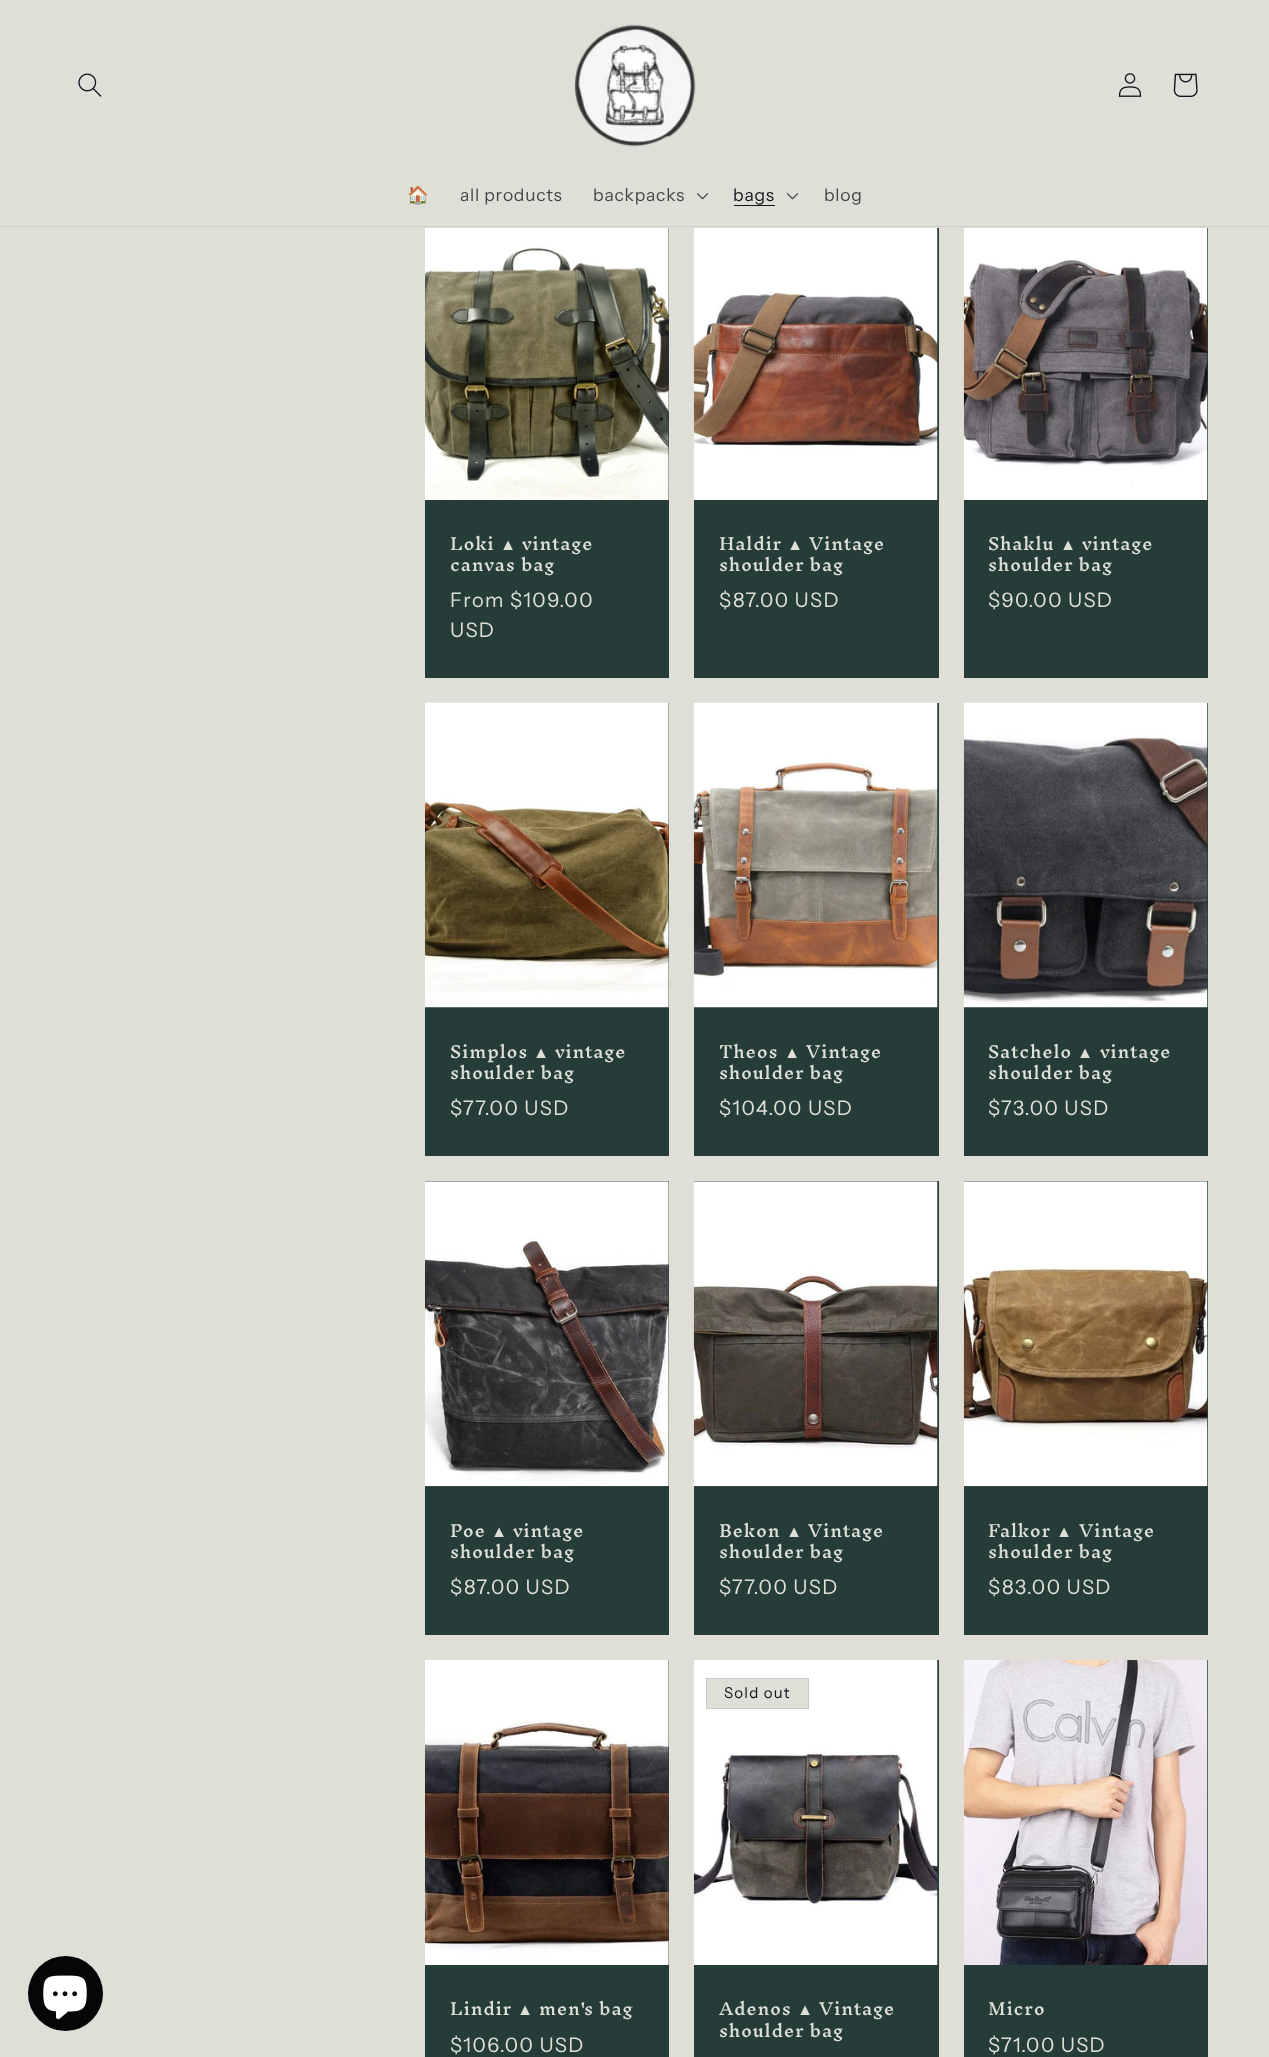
<?xml version="1.0" encoding="UTF-8"?>
<svg xmlns="http://www.w3.org/2000/svg" xmlns:xlink="http://www.w3.org/1999/xlink" width="1269" height="2057">
  <rect width="100%" height="100%" fill="#dfdfd8" />
  <rect y="226" width="1269" height="1" fill="#cfcfc9" />
  <image x="78" y="73" width="24" height="24" xlink:href="image1.png" />
  <image x="574" y="24" width="122" height="123" xlink:href="image2.png" />
  <image x="1118" y="73" width="24" height="24" xlink:href="image3.png" />
  <image x="1173" y="73" width="25" height="24" xlink:href="image4.png" />
  <image x="696" y="193" width="13" height="7" xlink:href="image5.png" />
  <rect x="734" y="205" width="41" height="1" fill="#11151c" />
  <image x="786" y="193" width="13" height="7" xlink:href="image5.png" />
  <circle cx="65.5" cy="1993.5" r="37.5" fill="#070606" />
  <image x="43" y="1975" width="44" height="45" xlink:href="image6.png" />
  <rect x="425" y="228" width="244" height="450" fill="#253c39" />
  <image x="425" y="228" width="244" height="272" xlink:href="image7.png" />
  <rect x="694" y="228" width="245" height="450" fill="#253c39" />
  <image x="693" y="228" width="245" height="272" xlink:href="image8.png" />
  <rect x="964" y="228" width="244" height="450" fill="#253c39" />
  <image x="963" y="228" width="245" height="272" xlink:href="image9.png" />
  <rect x="425" y="703" width="244" height="453" fill="#253c39" />
  <image x="425" y="702" width="244" height="306" xlink:href="image10.png" />
  <rect x="694" y="703" width="245" height="453" fill="#253c39" />
  <image x="693" y="702" width="245" height="306" xlink:href="image11.png" />
  <rect x="964" y="703" width="244" height="453" fill="#253c39" />
  <image x="963" y="702" width="245" height="306" xlink:href="image12.png" />
  <rect x="425" y="1181" width="244" height="454" fill="#253c39" />
  <image x="425" y="1181" width="244" height="306" xlink:href="image13.png" />
  <rect x="694" y="1181" width="245" height="454" fill="#253c39" />
  <image x="693" y="1181" width="245" height="306" xlink:href="image14.png" />
  <rect x="964" y="1181" width="244" height="454" fill="#253c39" />
  <image x="963" y="1181" width="245" height="306" xlink:href="image15.png" />
  <rect x="425" y="1660" width="244" height="397" fill="#253c39" />
  <image x="425" y="1660" width="244" height="305" xlink:href="image16.png" />
  <rect x="694" y="1660" width="245" height="397" fill="#253c39" />
  <image x="693" y="1660" width="245" height="305" xlink:href="image17.png" />
  <rect x="706.5" y="1678.5" width="102" height="30" fill="#dfdfd8" stroke="#cacbc5" />
  <rect x="964" y="1660" width="244" height="397" fill="#253c39" />
  <image x="963" y="1660" width="245" height="305" xlink:href="image18.png" />
  <text x="407" y="201" style="font-family: Noto Color Emoji; font-size: 17.5px; letter-spacing: 0.75px; fill: #45484b">🏠</text>
  <text x="460" y="201" style="font-family: Instrument Sans; font-size: 17.5px; letter-spacing: 0.75px; fill: #45484b">all products</text>
  <text x="593" y="201" style="font-family: Instrument Sans; font-size: 17.5px; letter-spacing: 0.75px; fill: #45484b">backpacks</text>
  <text x="733" y="201" style="font-family: Instrument Sans; font-size: 17.5px; letter-spacing: 0.75px; fill: #11151c">bags</text>
  <text x="824" y="201" style="font-family: Instrument Sans; font-size: 17.5px; letter-spacing: 0.75px; fill: #45484b">blog</text>
  <text x="450" y="550" style="font-family: Inknut Antiqua; font-size: 16.25px; font-weight: 500; letter-spacing: 0.75px; fill: #dfdfd8">Loki</text>
  <text x="500" y="550" style="font-family: Liberation Serif; font-size: 16.25px; letter-spacing: 0.75px; fill: #dfdfd8">▲</text>
  <text x="522" y="550" style="font-family: Inknut Antiqua; font-size: 16.25px; font-weight: 500; letter-spacing: 0.75px; fill: #dfdfd8">vintage</text>
  <text x="450" y="571" style="font-family: Inknut Antiqua; font-size: 16.25px; font-weight: 500; letter-spacing: 0.75px; fill: #dfdfd8">canvas bag</text>
  <text x="450" y="607" style="font-family: Instrument Sans; font-size: 20px; letter-spacing: 1.25px; fill: #dfdfd8">From $109.00</text>
  <text x="450" y="637" style="font-family: Instrument Sans; font-size: 20px; letter-spacing: 1.25px; fill: #dfdfd8">USD</text>
  <text x="719" y="550" style="font-family: Inknut Antiqua; font-size: 16.25px; font-weight: 500; letter-spacing: 0.75px; fill: #dfdfd8">Haldir</text>
  <text x="787" y="550" style="font-family: Liberation Serif; font-size: 16.25px; letter-spacing: 0.75px; fill: #dfdfd8">▲</text>
  <text x="809" y="550" style="font-family: Inknut Antiqua; font-size: 16.25px; font-weight: 500; letter-spacing: 0.75px; fill: #dfdfd8">Vintage</text>
  <text x="719" y="571" style="font-family: Inknut Antiqua; font-size: 16.25px; font-weight: 500; letter-spacing: 0.75px; fill: #dfdfd8">shoulder bag</text>
  <text x="719" y="607" style="font-family: Instrument Sans; font-size: 20px; letter-spacing: 1.25px; fill: #dfdfd8">$87.00 USD</text>
  <text x="988" y="550" style="font-family: Inknut Antiqua; font-size: 16.25px; font-weight: 500; letter-spacing: 0.75px; fill: #dfdfd8">Shaklu</text>
  <text x="1060" y="550" style="font-family: Liberation Serif; font-size: 16.25px; letter-spacing: 0.75px; fill: #dfdfd8">▲</text>
  <text x="1082" y="550" style="font-family: Inknut Antiqua; font-size: 16.25px; font-weight: 500; letter-spacing: 0.75px; fill: #dfdfd8">vintage</text>
  <text x="988" y="571" style="font-family: Inknut Antiqua; font-size: 16.25px; font-weight: 500; letter-spacing: 0.75px; fill: #dfdfd8">shoulder bag</text>
  <text x="988" y="607" style="font-family: Instrument Sans; font-size: 20px; letter-spacing: 1.25px; fill: #dfdfd8">$90.00 USD</text>
  <text x="450" y="1058" style="font-family: Inknut Antiqua; font-size: 16.25px; font-weight: 500; letter-spacing: 0.75px; fill: #dfdfd8">Simplos</text>
  <text x="533" y="1058" style="font-family: Liberation Serif; font-size: 16.25px; letter-spacing: 0.75px; fill: #dfdfd8">▲</text>
  <text x="555" y="1058" style="font-family: Inknut Antiqua; font-size: 16.25px; font-weight: 500; letter-spacing: 0.75px; fill: #dfdfd8">vintage</text>
  <text x="450" y="1079" style="font-family: Inknut Antiqua; font-size: 16.25px; font-weight: 500; letter-spacing: 0.75px; fill: #dfdfd8">shoulder bag</text>
  <text x="450" y="1115" style="font-family: Instrument Sans; font-size: 20px; letter-spacing: 1.25px; fill: #dfdfd8">$77.00 USD</text>
  <text x="719" y="1058" style="font-family: Inknut Antiqua; font-size: 16.25px; font-weight: 500; letter-spacing: 0.75px; fill: #dfdfd8">Theos</text>
  <text x="784" y="1058" style="font-family: Liberation Serif; font-size: 16.25px; letter-spacing: 0.75px; fill: #dfdfd8">▲</text>
  <text x="806" y="1058" style="font-family: Inknut Antiqua; font-size: 16.25px; font-weight: 500; letter-spacing: 0.75px; fill: #dfdfd8">Vintage</text>
  <text x="719" y="1079" style="font-family: Inknut Antiqua; font-size: 16.25px; font-weight: 500; letter-spacing: 0.75px; fill: #dfdfd8">shoulder bag</text>
  <text x="719" y="1115" style="font-family: Instrument Sans; font-size: 20px; letter-spacing: 1.25px; fill: #dfdfd8">$104.00 USD</text>
  <text x="988" y="1058" style="font-family: Inknut Antiqua; font-size: 16.25px; font-weight: 500; letter-spacing: 0.75px; fill: #dfdfd8">Satchelo</text>
  <text x="1077" y="1058" style="font-family: Liberation Serif; font-size: 16.25px; letter-spacing: 0.75px; fill: #dfdfd8">▲</text>
  <text x="1100" y="1058" style="font-family: Inknut Antiqua; font-size: 16.25px; font-weight: 500; letter-spacing: 0.75px; fill: #dfdfd8">vintage</text>
  <text x="988" y="1079" style="font-family: Inknut Antiqua; font-size: 16.25px; font-weight: 500; letter-spacing: 0.75px; fill: #dfdfd8">shoulder bag</text>
  <text x="988" y="1115" style="font-family: Instrument Sans; font-size: 20px; letter-spacing: 1.25px; fill: #dfdfd8">$73.00 USD</text>
  <text x="450" y="1537" style="font-family: Inknut Antiqua; font-size: 16.25px; font-weight: 500; letter-spacing: 0.75px; fill: #dfdfd8">Poe</text>
  <text x="491" y="1537" style="font-family: Liberation Serif; font-size: 16.25px; letter-spacing: 0.75px; fill: #dfdfd8">▲</text>
  <text x="513" y="1537" style="font-family: Inknut Antiqua; font-size: 16.25px; font-weight: 500; letter-spacing: 0.75px; fill: #dfdfd8">vintage</text>
  <text x="450" y="1558" style="font-family: Inknut Antiqua; font-size: 16.25px; font-weight: 500; letter-spacing: 0.75px; fill: #dfdfd8">shoulder bag</text>
  <text x="450" y="1594" style="font-family: Instrument Sans; font-size: 20px; letter-spacing: 1.25px; fill: #dfdfd8">$87.00 USD</text>
  <text x="719" y="1537" style="font-family: Inknut Antiqua; font-size: 16.25px; font-weight: 500; letter-spacing: 0.75px; fill: #dfdfd8">Bekon</text>
  <text x="786" y="1537" style="font-family: Liberation Serif; font-size: 16.25px; letter-spacing: 0.75px; fill: #dfdfd8">▲</text>
  <text x="808" y="1537" style="font-family: Inknut Antiqua; font-size: 16.25px; font-weight: 500; letter-spacing: 0.75px; fill: #dfdfd8">Vintage</text>
  <text x="719" y="1558" style="font-family: Inknut Antiqua; font-size: 16.25px; font-weight: 500; letter-spacing: 0.75px; fill: #dfdfd8">shoulder bag</text>
  <text x="719" y="1594" style="font-family: Instrument Sans; font-size: 20px; letter-spacing: 1.25px; fill: #dfdfd8">$77.00 USD</text>
  <text x="988" y="1537" style="font-family: Inknut Antiqua; font-size: 16.25px; font-weight: 500; letter-spacing: 0.75px; fill: #dfdfd8">Falkor</text>
  <text x="1056" y="1537" style="font-family: Liberation Serif; font-size: 16.25px; letter-spacing: 0.75px; fill: #dfdfd8">▲</text>
  <text x="1079" y="1537" style="font-family: Inknut Antiqua; font-size: 16.25px; font-weight: 500; letter-spacing: 0.75px; fill: #dfdfd8">Vintage</text>
  <text x="988" y="1558" style="font-family: Inknut Antiqua; font-size: 16.25px; font-weight: 500; letter-spacing: 0.75px; fill: #dfdfd8">shoulder bag</text>
  <text x="988" y="1594" style="font-family: Instrument Sans; font-size: 20px; letter-spacing: 1.25px; fill: #dfdfd8">$83.00 USD</text>
  <text x="450" y="2015" style="font-family: Inknut Antiqua; font-size: 16.25px; font-weight: 500; letter-spacing: 0.75px; fill: #dfdfd8">Lindir</text>
  <text x="517" y="2015" style="font-family: Liberation Serif; font-size: 16.25px; letter-spacing: 0.75px; fill: #dfdfd8">▲</text>
  <text x="539" y="2015" style="font-family: Inknut Antiqua; font-size: 16.25px; font-weight: 500; letter-spacing: 0.75px; fill: #dfdfd8">men's bag</text>
  <text x="450" y="2052" style="font-family: Instrument Sans; font-size: 20px; letter-spacing: 1.25px; fill: #dfdfd8">$106.00 USD</text>
  <text x="724" y="1698" style="font-family: Instrument Sans; font-size: 15px; letter-spacing: 1.25px; fill: #11151c">Sold out</text>
  <text x="719" y="2015" style="font-family: Inknut Antiqua; font-size: 16.25px; font-weight: 500; letter-spacing: 0.75px; fill: #dfdfd8">Adenos</text>
  <text x="797" y="2015" style="font-family: Liberation Serif; font-size: 16.25px; letter-spacing: 0.75px; fill: #dfdfd8">▲</text>
  <text x="819" y="2015" style="font-family: Inknut Antiqua; font-size: 16.25px; font-weight: 500; letter-spacing: 0.75px; fill: #dfdfd8">Vintage</text>
  <text x="719" y="2037" style="font-family: Inknut Antiqua; font-size: 16.25px; font-weight: 500; letter-spacing: 0.75px; fill: #dfdfd8">shoulder bag</text>
  <text x="988" y="2015" style="font-family: Inknut Antiqua; font-size: 16.25px; font-weight: 500; letter-spacing: 0.75px; fill: #dfdfd8">Micro</text>
  <text x="988" y="2052" style="font-family: Instrument Sans; font-size: 20px; letter-spacing: 1.25px; fill: #dfdfd8">$71.00 USD</text>
</svg>
